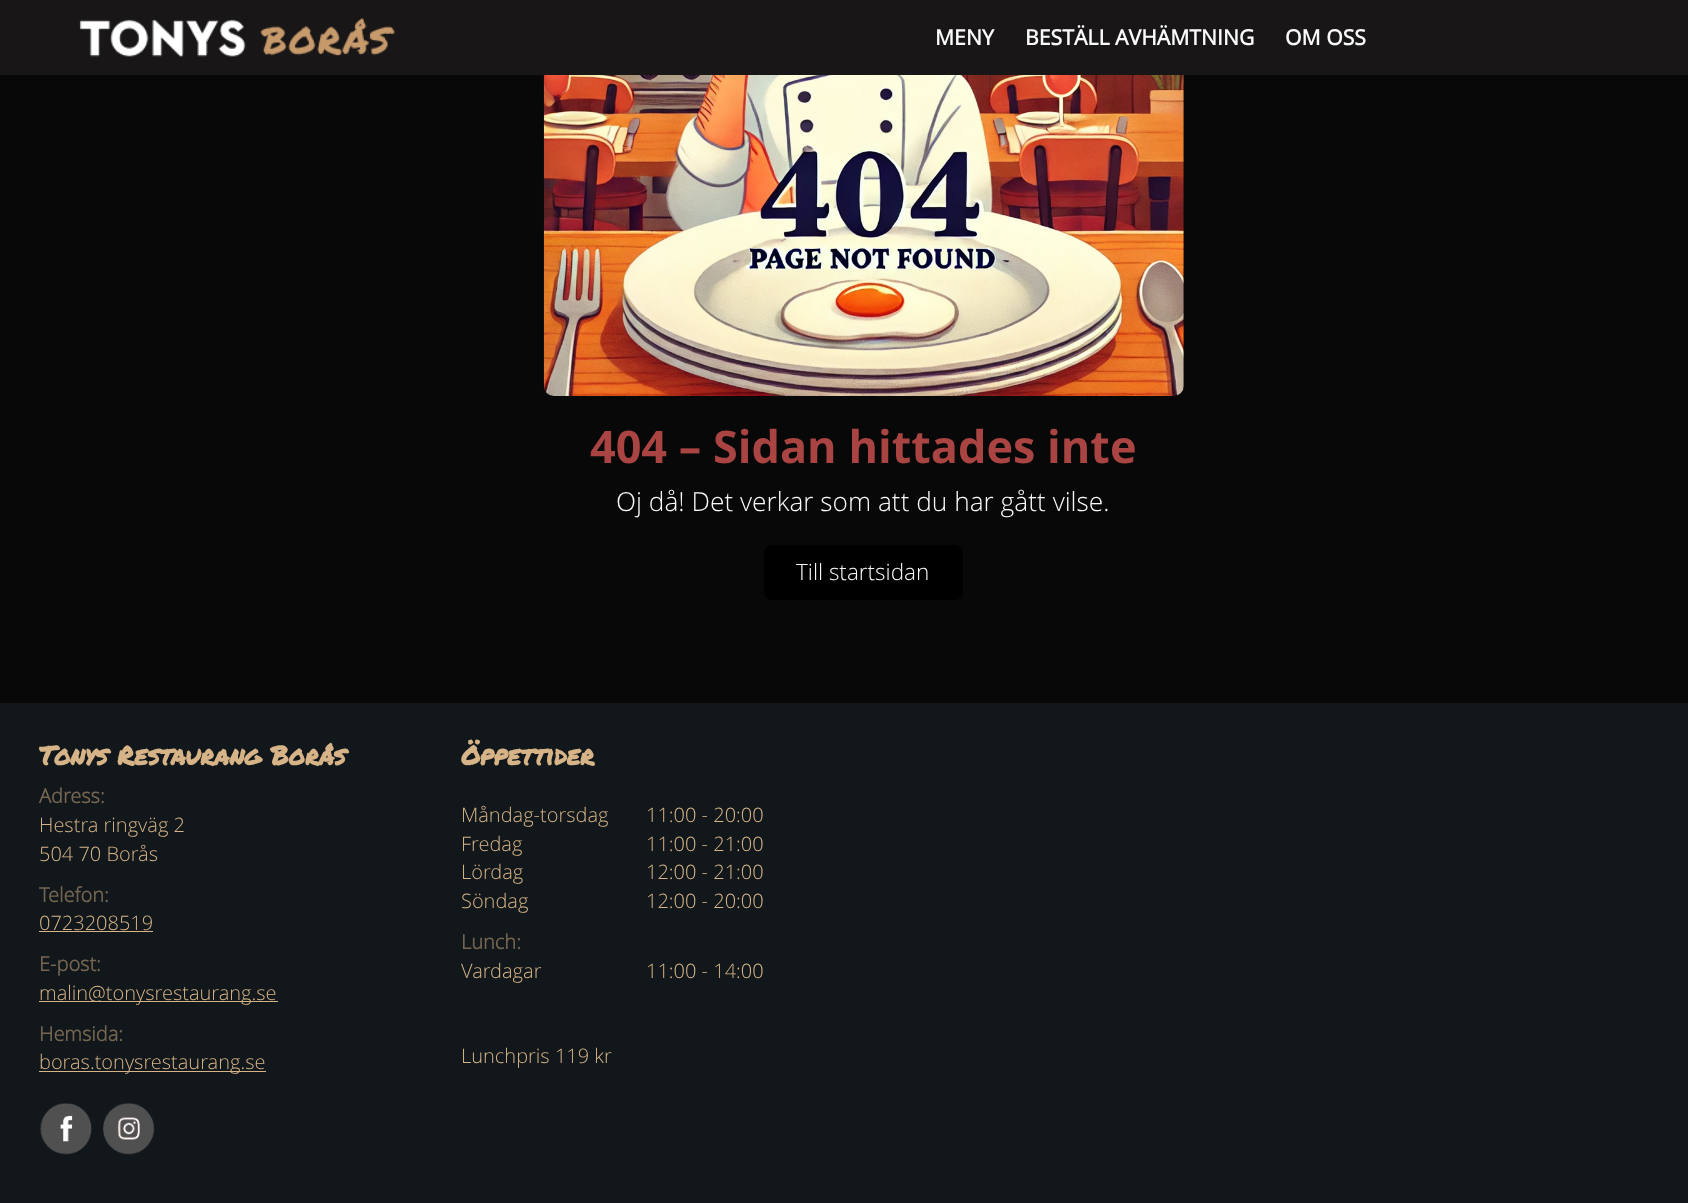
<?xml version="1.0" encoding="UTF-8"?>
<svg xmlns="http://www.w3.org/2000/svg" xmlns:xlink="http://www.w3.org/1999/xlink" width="1688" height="1203">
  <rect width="100%" height="100%" fill="#080808" />
  <rect width="1688" height="75" fill="#181617" />
  <image x="79" y="17" width="317" height="40" xlink:href="image1.png" />
  <image x="543" y="75" width="641" height="321" xlink:href="image2.png" />
  <rect x="764" y="545" width="199" height="55" rx="8" fill="#000000" />
  <rect y="703" width="1688" height="500" fill="#12171b" />
  <rect x="39" y="931" width="114" height="1" fill="#d6b487" />
  <rect x="39" y="1001" width="239" height="1" fill="#d6b487" />
  <rect x="39" y="1071" width="227" height="1" fill="#d6b487" />
  <image x="40" y="1103" width="52" height="52" xlink:href="image3.png" />
  <image x="103" y="1102" width="52" height="53" xlink:href="image4.png" />
  <text x="935" y="45" style="font-family: 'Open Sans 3'; font-size: 21.25px; font-weight: bold; fill: #fafafa">MENY</text>
  <text x="1025" y="45" style="font-family: 'Open Sans 3'; font-size: 21.25px; font-weight: bold; fill: #fafafa">BESTÄLL AVHÄMTNING</text>
  <text x="1285" y="45" style="font-family: 'Open Sans 3'; font-size: 21.25px; font-weight: bold; fill: #fafafa">OM OSS</text>
  <text x="590" y="463" style="font-family: Open Sans; font-size: 45px; font-weight: bold; fill: #a94442">404 – Sidan hittades inte</text>
  <text x="616" y="511" style="font-family: Open Sans; font-size: 26.25px; font-weight: 300; fill: #fafafa">Oj då! Det verkar som att du har gått vilse.</text>
  <text x="796" y="580" style="font-family: Open Sans; font-size: 22.5px; font-weight: 300; fill: #fafafa">Till startsidan</text>
  <text x="39" y="765" style="font-family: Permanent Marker; font-size: 26px; font-weight: bold; fill: #d6b487">Tonys Restaurang Borås</text>
  <text x="39" y="803" style="font-family: 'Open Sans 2'; font-size: 20px; font-weight: bold; fill: #746651">Adress:</text>
  <text x="39" y="832" style="font-family: Open Sans; font-size: 20px; font-weight: 300; fill: #d6b487">Hestra ringväg 2</text>
  <text x="39" y="861" style="font-family: Open Sans; font-size: 20px; font-weight: 300; fill: #d6b487">504 70 Borås</text>
  <text x="39" y="902" style="font-family: 'Open Sans 2'; font-size: 20px; font-weight: bold; fill: #746651">Telefon:</text>
  <text x="39" y="930" style="font-family: Open Sans; font-size: 20px; font-weight: 300; fill: #d6b487">0723208519</text>
  <text x="39" y="971" style="font-family: 'Open Sans 2'; font-size: 20px; font-weight: bold; fill: #746651">E-post:</text>
  <text x="39" y="1000" style="font-family: Open Sans; font-size: 20px; font-weight: 300; fill: #d6b487">malin@tonysrestaurang.se</text>
  <text x="39" y="1041" style="font-family: 'Open Sans 2'; font-size: 20px; font-weight: bold; fill: #746651">Hemsida:</text>
  <text x="39" y="1069" style="font-family: Open Sans; font-size: 20px; font-weight: 300; fill: #d6b487">boras.tonysrestaurang.se</text>
  <text x="461" y="765" style="font-family: Permanent Marker; font-size: 26px; font-weight: bold; fill: #d6b487">Öppettider</text>
  <text x="461" y="822" style="font-family: Open Sans; font-size: 20px; font-weight: 300; fill: #d6b487">Måndag-torsdag</text>
  <text x="646" y="822" style="font-family: Open Sans; font-size: 20px; font-weight: 300; fill: #d6b487">11:00 - 20:00</text>
  <text x="461" y="851" style="font-family: Open Sans; font-size: 20px; font-weight: 300; fill: #d6b487">Fredag</text>
  <text x="646" y="851" style="font-family: Open Sans; font-size: 20px; font-weight: 300; fill: #d6b487">11:00 - 21:00</text>
  <text x="461" y="879" style="font-family: Open Sans; font-size: 20px; font-weight: 300; fill: #d6b487">Lördag</text>
  <text x="646" y="879" style="font-family: Open Sans; font-size: 20px; font-weight: 300; fill: #d6b487">12:00 - 21:00</text>
  <text x="461" y="908" style="font-family: Open Sans; font-size: 20px; font-weight: 300; fill: #d6b487">Söndag</text>
  <text x="646" y="908" style="font-family: Open Sans; font-size: 20px; font-weight: 300; fill: #d6b487">12:00 - 20:00</text>
  <text x="461" y="949" style="font-family: 'Open Sans 2'; font-size: 20px; font-weight: bold; fill: #746651">Lunch:</text>
  <text x="461" y="978" style="font-family: Open Sans; font-size: 20px; font-weight: 300; fill: #d6b487">Vardagar</text>
  <text x="646" y="978" style="font-family: Open Sans; font-size: 20px; font-weight: 300; fill: #d6b487">11:00 - 14:00</text>
  <text x="461" y="1063" style="font-family: Open Sans; font-size: 20px; font-weight: 300; fill: #d6b487">Lunchpris 119 kr</text>
</svg>
